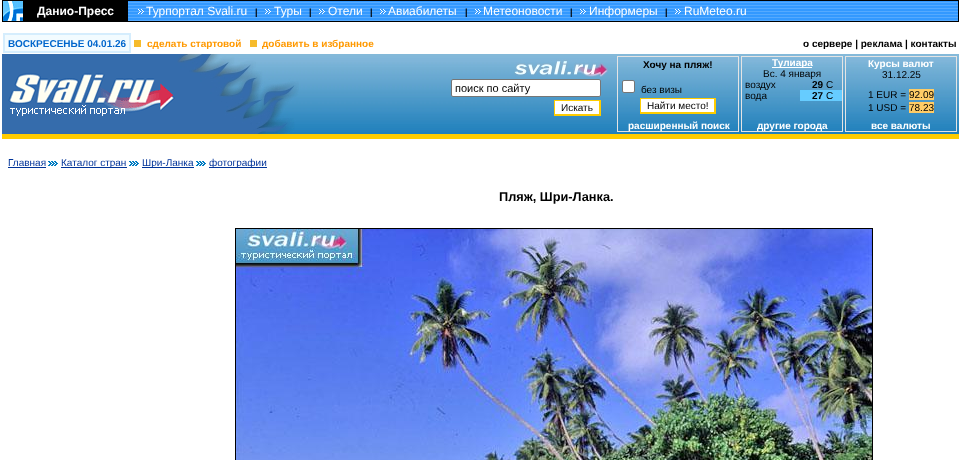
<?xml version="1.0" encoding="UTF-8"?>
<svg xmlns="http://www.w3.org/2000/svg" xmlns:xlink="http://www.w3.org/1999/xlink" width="959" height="460">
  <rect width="100%" height="100%" fill="#ffffff" />
  <rect x="2" width="957" height="22" fill="#000000" />
  <image x="3" y="1" width="20" height="20" xlink:href="image1.png" />
  <rect x="128" y="1" width="830" height="1" fill="#3399ff" />
  <image x="128" y="2" width="830" height="19" xlink:href="image2.png" />
  <image x="138" y="9" width="6" height="5" xlink:href="image3.png" />
  <image x="265" y="9" width="6" height="5" xlink:href="image3.png" />
  <image x="319" y="9" width="6" height="5" xlink:href="image3.png" />
  <image x="380" y="9" width="6" height="5" xlink:href="image3.png" />
  <image x="475" y="9" width="6" height="5" xlink:href="image3.png" />
  <image x="580" y="9" width="6" height="5" xlink:href="image3.png" />
  <image x="675" y="9" width="6" height="5" xlink:href="image3.png" />
  <rect x="4" y="34" width="126" height="18" fill="#f2fbff" stroke="#d5edfd" stroke-width="2" />
  <rect x="134" y="40" width="7" height="7" fill="#f6bb2c" />
  <rect x="250" y="40" width="7" height="7" fill="#f6bb2c" />
  <image x="299" y="54" width="660" height="80" xlink:href="image4.png" />
  <image x="2" y="54" width="174" height="80" xlink:href="image5.png" />
  <image x="176" y="54" width="123" height="80" xlink:href="image6.png" />
  <image x="514" y="59" width="94" height="18" xlink:href="image7.png" />
  <rect x="451.5" y="79.5" width="149" height="17" rx="1.5" fill="#ffffff" stroke="#767676" />
  <rect x="555" y="101" width="44" height="13" fill="#ffffff" />
  <rect x="554" y="100" width="47" height="1" fill="#ffcc00" />
  <rect x="599" y="100" width="2" height="16" fill="#ffcc00" />
  <rect x="554" y="114" width="47" height="2" fill="#ffcc00" />
  <rect x="554" y="100" width="1" height="16" fill="#ffcc00" />
  <rect x="617.5" y="56.5" width="121" height="75" fill="none" stroke="#e4e4e4" />
  <rect x="622.5" y="80.5" width="12" height="12" rx="1.5" fill="#ffffff" stroke="#767676" />
  <rect x="641" y="99" width="73" height="13" fill="#ffffff" />
  <rect x="640" y="98" width="76" height="1" fill="#ffcc00" />
  <rect x="714" y="98" width="2" height="16" fill="#ffcc00" />
  <rect x="640" y="112" width="76" height="2" fill="#ffcc00" />
  <rect x="640" y="98" width="1" height="16" fill="#ffcc00" />
  <rect x="741.5" y="56.5" width="101" height="75" fill="none" stroke="#e4e4e4" />
  <rect x="772" y="67" width="40" height="1" fill="#ffffff" />
  <rect x="800" y="90" width="42" height="11" fill="#66ccff" />
  <rect x="845.5" y="56.5" width="111" height="75" fill="none" stroke="#e4e4e4" />
  <rect x="909" y="89" width="25" height="11" fill="#ffcc66" />
  <rect x="909" y="102" width="25" height="11" fill="#ffcc66" />
  <rect x="2" y="134" width="957" height="5" fill="#ffcc00" />
  <rect x="8" y="167" width="38" height="1" fill="#003399" />
  <image x="48" y="161" width="10" height="5" xlink:href="image8.png" />
  <rect x="61" y="167" width="66" height="1" fill="#003399" />
  <image x="129" y="161" width="10" height="5" xlink:href="image8.png" />
  <rect x="142" y="167" width="52" height="1" fill="#003399" />
  <image x="196" y="161" width="10" height="5" xlink:href="image8.png" />
  <rect x="209" y="167" width="58" height="1" fill="#003399" />
  <rect x="235.5" y="228.5" width="637" height="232" fill="none" stroke="#000000" />
  <image x="236" y="229" width="636" height="231" xlink:href="image9.png" />
  <text x="37" y="15" style="font-family: Liberation Sans; font-size: 12px; font-weight: bold; fill: #ffffff">Данио-Пресс</text>
  <text x="146" y="15" style="font-family: Liberation Sans; font-size: 12px; fill: #ffffff">Турпортал Svali.ru</text>
  <text x="255" y="15" style="font-family: Liberation Sans; font-size: 9px; font-weight: bold; fill: #000000">|</text>
  <text x="274" y="15" style="font-family: Liberation Sans; font-size: 12px; fill: #ffffff">Туры</text>
  <text x="309" y="15" style="font-family: Liberation Sans; font-size: 9px; font-weight: bold; fill: #000000">|</text>
  <text x="328" y="15" style="font-family: Liberation Sans; font-size: 12px; fill: #ffffff">Отели</text>
  <text x="370" y="15" style="font-family: Liberation Sans; font-size: 9px; font-weight: bold; fill: #000000">|</text>
  <text x="388" y="15" style="font-family: Liberation Sans; font-size: 12px; fill: #ffffff">Авиабилеты</text>
  <text x="465" y="15" style="font-family: Liberation Sans; font-size: 9px; font-weight: bold; fill: #000000">|</text>
  <text x="483" y="15" style="font-family: Liberation Sans; font-size: 12px; fill: #ffffff">Метеоновости</text>
  <text x="570" y="15" style="font-family: Liberation Sans; font-size: 9px; font-weight: bold; fill: #000000">|</text>
  <text x="589" y="15" style="font-family: Liberation Sans; font-size: 12px; fill: #ffffff">Информеры</text>
  <text x="665" y="15" style="font-family: Liberation Sans; font-size: 9px; font-weight: bold; fill: #000000">|</text>
  <text x="684" y="15" style="font-family: Liberation Sans; font-size: 12px; fill: #ffffff">RuMeteo.ru</text>
  <text x="8" y="47" style="font-family: Liberation Sans; font-size: 10px; font-weight: bold; fill: #0066cc">ВОСКРЕСЕНЬЕ 04.01.26</text>
  <text x="147" y="47" style="font-family: Liberation Sans; font-size: 10px; font-weight: bold; fill: #ff9900">сделать стартовой</text>
  <text x="262" y="47" style="font-family: Liberation Sans; font-size: 10px; font-weight: bold; fill: #ff9900">добавить в избранное</text>
  <text x="803" y="47" style="font-family: Liberation Sans; font-size: 10px; font-weight: bold; fill: #000000">о сервере | реклама | контакты</text>
  <text x="455" y="92" style="font-family: Liberation Sans; font-size: 11px; fill: #000000">поиск по сайту</text>
  <text x="561" y="111" style="font-family: Liberation Sans; font-size: 10px; fill: #000000">Искать</text>
  <text x="643" y="68" style="font-family: Liberation Sans; font-size: 10px; font-weight: bold; fill: #000000">Хочу на пляж!</text>
  <text x="641" y="93" style="font-family: Liberation Sans; font-size: 10px; fill: #000000">без визы</text>
  <text x="647" y="109" style="font-family: Liberation Sans; font-size: 10px; fill: #000000">Найти место!</text>
  <text x="628" y="129" style="font-family: Liberation Sans; font-size: 10px; font-weight: bold; fill: #ffffff">расширенный поиск</text>
  <text x="772" y="66" style="font-family: Liberation Sans; font-size: 10px; font-weight: bold; fill: #ffffff">Тулиара</text>
  <text x="763" y="77" style="font-family: Liberation Sans; font-size: 10px; fill: #000000">Вс. 4 января</text>
  <text x="745" y="88" style="font-family: Liberation Sans; font-size: 10px; fill: #000000">воздух</text>
  <text x="812" y="88" style="font-family: Liberation Sans; font-size: 10px; font-weight: bold; fill: #000000">29</text>
  <text x="826" y="88" style="font-family: Liberation Sans; font-size: 10px; fill: #000000">C</text>
  <text x="745" y="99" style="font-family: Liberation Sans; font-size: 10px; fill: #000000">вода</text>
  <text x="812" y="99" style="font-family: Liberation Sans; font-size: 10px; font-weight: bold; fill: #000000">27</text>
  <text x="826" y="99" style="font-family: Liberation Sans; font-size: 10px; fill: #000000">C</text>
  <text x="757" y="129" style="font-family: Liberation Sans; font-size: 10px; font-weight: bold; fill: #ffffff">другие города</text>
  <text x="868" y="67" style="font-family: Liberation Sans; font-size: 10px; font-weight: bold; fill: #ffffff">Курсы валют</text>
  <text x="882" y="78" style="font-family: Liberation Sans; font-size: 10px; fill: #000000">31.12.25</text>
  <text x="868" y="98" style="font-family: Liberation Sans; font-size: 10px; fill: #000000">1 EUR =</text>
  <text x="909" y="98" style="font-family: Liberation Sans; font-size: 10px; fill: #000000">92.09</text>
  <text x="868" y="111" style="font-family: Liberation Sans; font-size: 10px; fill: #000000">1 USD =</text>
  <text x="909" y="111" style="font-family: Liberation Sans; font-size: 10px; fill: #000000">78.23</text>
  <text x="871" y="129" style="font-family: Liberation Sans; font-size: 10px; font-weight: bold; fill: #ffffff">все валюты</text>
  <text x="8" y="166" style="font-family: Liberation Sans; font-size: 10px; fill: #003399">Главная</text>
  <text x="61" y="166" style="font-family: Liberation Sans; font-size: 10px; fill: #003399">Каталог стран</text>
  <text x="142" y="166" style="font-family: Liberation Sans; font-size: 10px; fill: #003399">Шри-Ланка</text>
  <text x="209" y="166" style="font-family: Liberation Sans; font-size: 10px; fill: #003399">фотографии</text>
  <text x="499" y="201" style="font-family: Liberation Sans; font-size: 12.75px; font-weight: bold; fill: #000000">Пляж, Шри-Ланка.</text>
</svg>
